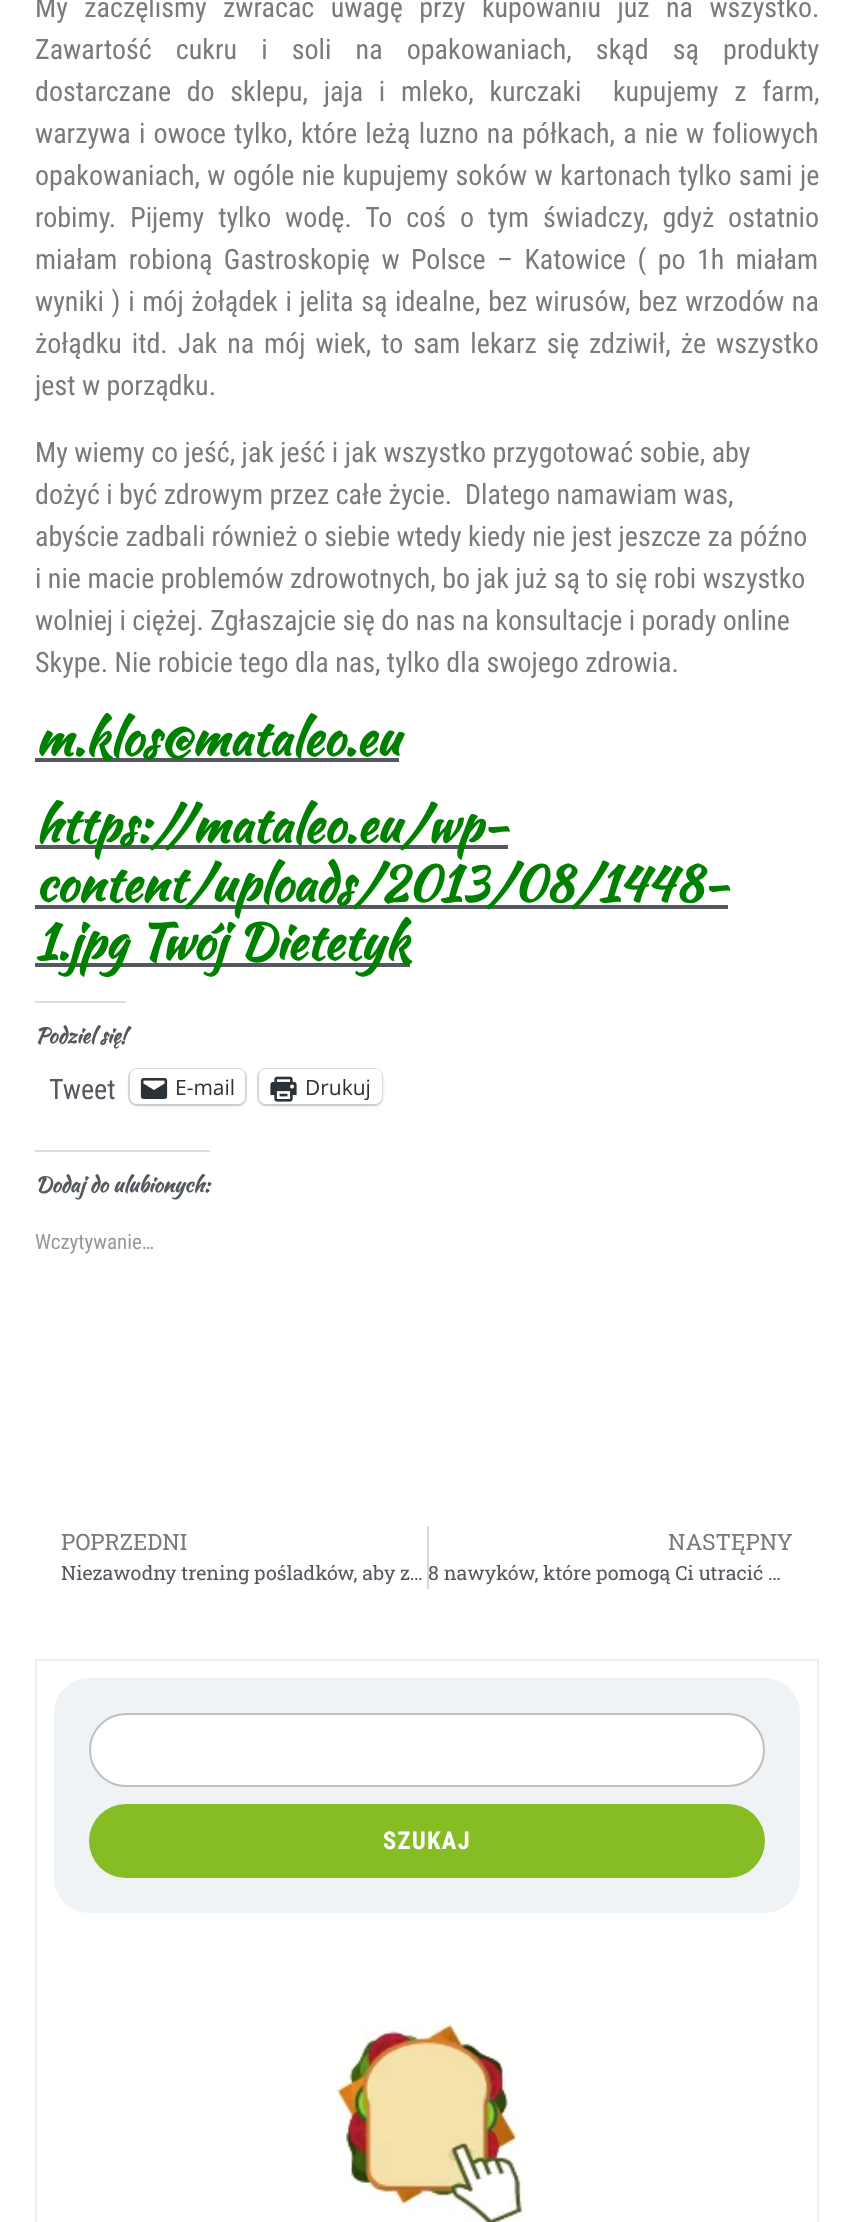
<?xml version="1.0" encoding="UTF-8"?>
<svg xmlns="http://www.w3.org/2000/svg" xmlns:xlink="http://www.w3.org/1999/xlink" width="853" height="2222">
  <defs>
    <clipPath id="clip1"><rect x="429" y="1559" width="364" height="30" /></clipPath>
  </defs>
  <rect width="100%" height="100%" fill="#ffffff" />
  <rect x="35" y="758" width="364" height="4" fill="#54595f" />
  <rect x="35" y="845" width="473" height="4" fill="#54595f" />
  <rect x="35" y="905" width="693" height="4" fill="#54595f" />
  <rect x="35" y="963" width="375" height="4" fill="#54595f" />
  <rect x="35" y="1001" width="91" height="2" fill="#dcdcde" />
  <rect x="129" y="1069" width="117" height="36" rx="8" fill="none" stroke="#e0e0e0" stroke-width="2" />
  <rect x="130" y="1071" width="115" height="35" rx="7" fill="#000000" fill-opacity="0.12" filter="blur(2px)" />
  <rect x="130" y="1069" width="115" height="35" rx="7" fill="#ffffff" />
  <image x="140" y="1078" width="28" height="21" xlink:href="image1.png" />
  <rect x="258" y="1069" width="124" height="36" rx="8" fill="none" stroke="#e0e0e0" stroke-width="2" />
  <rect x="259" y="1071" width="123" height="35" rx="7" fill="#000000" fill-opacity="0.12" filter="blur(2px)" />
  <rect x="259" y="1069" width="123" height="35" rx="7" fill="#ffffff" />
  <image x="270" y="1076" width="27" height="26" xlink:href="image2.png" />
  <rect x="35" y="1150" width="175" height="2" fill="#dcdcde" />
  <rect x="427" y="1526" width="2" height="63" fill="#d5d8dc" />
  <rect x="36" y="1660" width="782" height="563" fill="none" stroke="#ededed" stroke-width="2" />
  <rect x="54" y="1678" width="746" height="235" rx="35" fill="#eff3f6" />
  <rect x="90" y="1714" width="674" height="72" rx="36" fill="#ffffff" stroke="#c0c0c0" stroke-width="2" />
  <rect x="89" y="1804" width="676" height="74" rx="37" fill="#86bc24" />
  <image x="335" y="2023" width="190" height="199" xlink:href="image3.png" />
  <text x="35" y="17" word-spacing="10" style="font-family: Roboto Condensed; font-size: 28px; fill: #7a7a7a">My zaczęliśmy zwracać uwagę przy kupowaniu już na wszystko.</text>
  <text x="35" y="59" word-spacing="17.75" style="font-family: Roboto Condensed; font-size: 28px; fill: #7a7a7a">Zawartość cukru i soli na opakowaniach, skąd są produkty</text>
  <text x="35" y="101" word-spacing="9.25" style="font-family: Roboto Condensed; font-size: 28px; fill: #7a7a7a" xml:space="preserve">dostarczane do sklepu, jaja i mleko, kurczaki  kupujemy z farm,</text>
  <text x="35" y="143" word-spacing="1.8" style="font-family: Roboto Condensed; font-size: 28px; fill: #7a7a7a">warzywa i owoce tylko, które leżą luzno na półkach, a nie w foliowych</text>
  <text x="35" y="185" word-spacing="1" style="font-family: Roboto Condensed; font-size: 28px; fill: #7a7a7a">opakowaniach, w ogóle nie kupujemy soków w kartonach tylko sami je</text>
  <text x="35" y="227" word-spacing="7.5" style="font-family: Roboto Condensed; font-size: 28px; fill: #7a7a7a">robimy. Pijemy tylko wodę. To coś o tym świadczy, gdyż ostatnio</text>
  <text x="35" y="269" word-spacing="5" style="font-family: Roboto Condensed; font-size: 28px; fill: #7a7a7a">miałam robioną Gastroskopię w Polsce – Katowice ( po 1h miałam</text>
  <text x="35" y="311" word-spacing="1.25" style="font-family: Roboto Condensed; font-size: 28px; fill: #7a7a7a">wyniki ) i mój żołądek i jelita są idealne, bez wirusów, bez wrzodów na</text>
  <text x="35" y="353" word-spacing="3.5" style="font-family: Roboto Condensed; font-size: 28px; fill: #7a7a7a">żołądku itd. Jak na mój wiek, to sam lekarz się zdziwił, że wszystko</text>
  <text x="35" y="395" style="font-family: Roboto Condensed; font-size: 28px; fill: #7a7a7a">jest w porządku.</text>
  <text x="35" y="462" style="font-family: Roboto Condensed; font-size: 28px; fill: #7a7a7a">My wiemy co jeść, jak jeść i jak wszystko przygotować sobie, aby</text>
  <text x="35" y="504" style="font-family: Roboto Condensed; font-size: 28px; fill: #7a7a7a" xml:space="preserve">dożyć i być zdrowym przez całe życie.  Dlatego namawiam was,</text>
  <text x="35" y="546" style="font-family: Roboto Condensed; font-size: 28px; fill: #7a7a7a">abyście zadbali również o siebie wtedy kiedy nie jest jeszcze za późno</text>
  <text x="35" y="588" style="font-family: Roboto Condensed; font-size: 28px; fill: #7a7a7a">i nie macie problemów zdrowotnych, bo jak już są to się robi wszystko</text>
  <text x="35" y="630" style="font-family: Roboto Condensed; font-size: 28px; fill: #7a7a7a">wolniej i ciężej. Zgłaszajcie się do nas na konsultacje i porady online</text>
  <text x="35" y="672" style="font-family: Roboto Condensed; font-size: 28px; fill: #7a7a7a">Skype. Nie robicie tego dla nas, tylko dla swojego zdrowia.</text>
  <text x="35" y="755" style="font-family: Kaushan Script; font-size: 49px; font-weight: bold; fill: #008000">m.klos@mataleo.eu</text>
  <text x="35" y="842" style="font-family: Kaushan Script; font-size: 49px; font-weight: bold; fill: #008000">https://mataleo.eu/wp-</text>
  <text x="35" y="901" style="font-family: Kaushan Script; font-size: 49px; font-weight: bold; fill: #008000">content/uploads/2013/08/1448-</text>
  <text x="35" y="959" style="font-family: Kaushan Script; font-size: 49px; font-weight: bold; fill: #008000">1.jpg Twój Dietetyk</text>
  <text x="35" y="1043" style="font-family: Kaushan Script; font-size: 21px; font-weight: bold; fill: #54595f">Podziel się!</text>
  <text x="49" y="1099" style="font-family: Roboto Condensed; font-size: 28px; fill: #54595f">Tweet</text>
  <text x="175" y="1095" style="font-family: Open Sans; font-size: 21px; fill: #2c3338">E-mail</text>
  <text x="305" y="1095" style="font-family: Open Sans; font-size: 21px; fill: #2c3338">Drukuj</text>
  <text x="35" y="1192" style="font-family: Kaushan Script; font-size: 21px; font-weight: bold; fill: #54595f">Dodaj do ulubionych:</text>
  <text x="35" y="1249" style="font-family: Roboto Condensed; font-size: 21px; fill: #999999">Wczytywanie…</text>
  <text x="61" y="1550" style="font-family: Roboto Slab; font-size: 22.5px; fill: #7a7a7a">POPRZEDNI</text>
  <text x="61" y="1580" style="font-family: Roboto Slab; font-size: 19.6px; fill: #54595f">Niezawodny trening pośladków, aby</text>
  <text x="400" y="1580" style="font-family: Roboto Slab; font-size: 19.6px; fill: #54595f">z…</text>
  <text x="668" y="1550" style="font-family: Roboto Slab; font-size: 22.5px; fill: #7a7a7a">NASTĘPNY</text>
  <g clip-path="url(#clip1)">
    <text x="428" y="1580" style="font-family: Roboto Slab; font-size: 19.6px; fill: #54595f">8 nawyków, które pomogą Ci utracić …</text>
  </g>
  <text x="383" y="1849" style="font-family: Roboto Condensed; font-size: 24.5px; font-weight: bold; letter-spacing: 1.25px; fill: #ffffff">SZUKAJ</text>
</svg>
